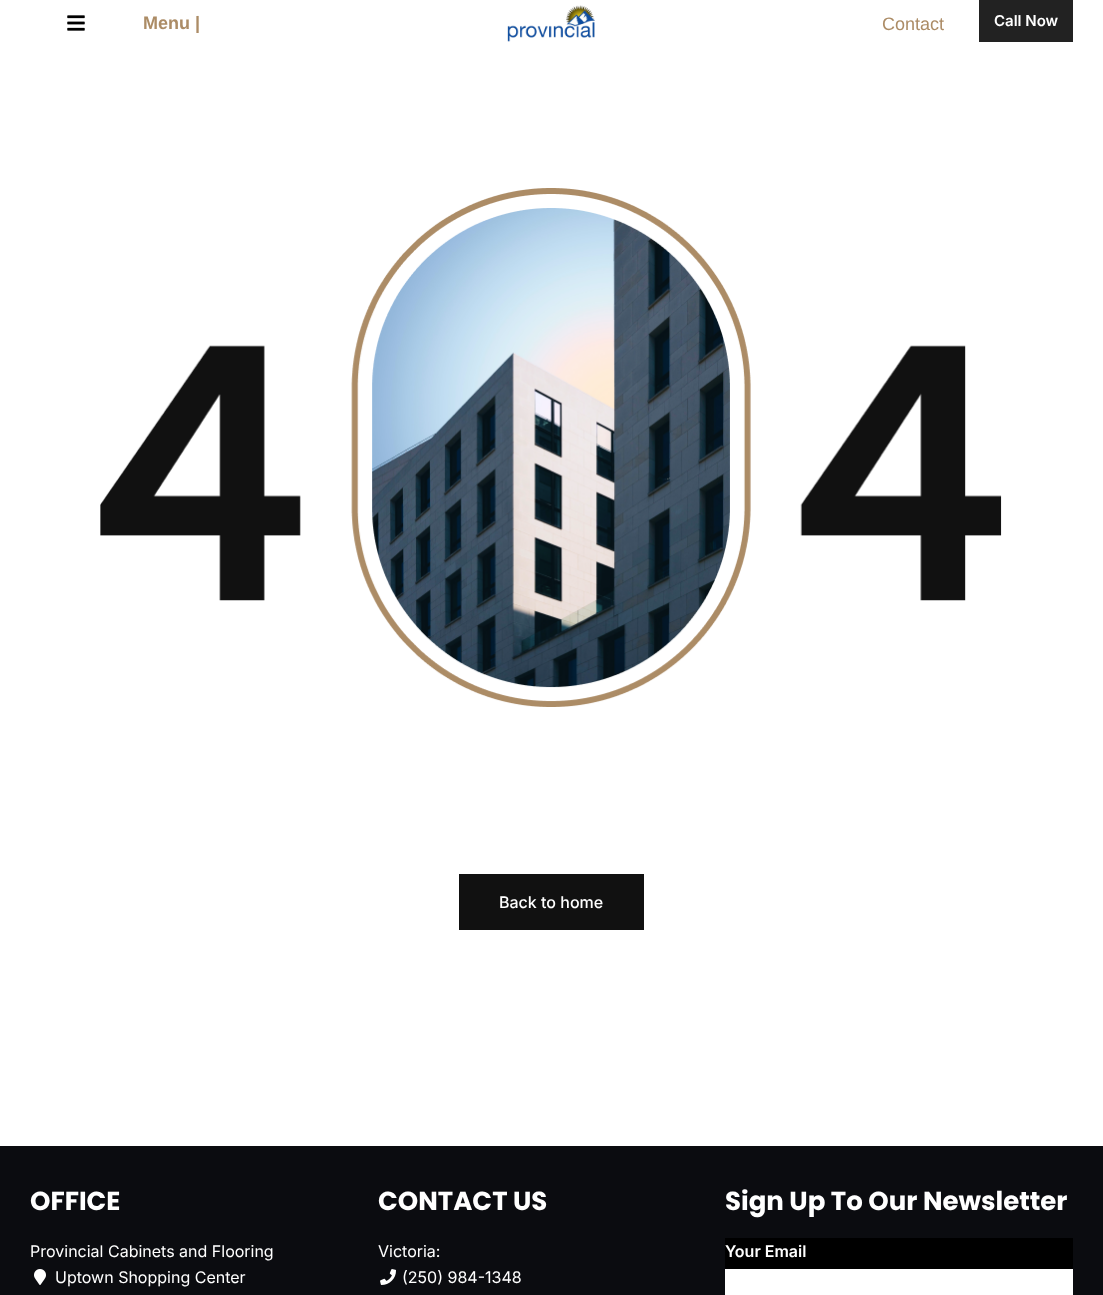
<?xml version="1.0" encoding="UTF-8"?>
<svg xmlns="http://www.w3.org/2000/svg" xmlns:xlink="http://www.w3.org/1999/xlink" width="1103" height="1295">
  <rect width="100%" height="100%" fill="#ffffff" />
  <image x="67" y="15" width="18" height="16" xlink:href="image1.png" />
  <image x="507" y="5" width="88" height="37" xlink:href="image2.png" />
  <rect x="979" width="94" height="42" fill="#222222" />
  <image x="100" y="188" width="902" height="519" xlink:href="image3.png" />
  <rect x="459" y="874" width="185" height="56" fill="#111111" />
  <rect y="1146" width="1103" height="149" fill="#0b0c10" />
  <image x="34" y="1269" width="12" height="16" xlink:href="image4.png" />
  <image x="380" y="1269" width="16" height="16" xlink:href="image5.png" />
  <rect x="725" y="1238" width="348" height="31" fill="#000000" />
  <rect x="725" y="1269" width="348" height="26" fill="#ffffff" />
  <text x="143" y="29" style="font-family: Liberation Sans; font-size: 18px; font-weight: bold; fill: #ac8c66">Menu |</text>
  <text x="882" y="30" style="font-family: Liberation Sans; font-size: 18px; fill: #ac8c66">Contact</text>
  <text x="994" y="26" style="font-family: Inter; font-size: 15px; font-weight: 600; fill: #ffffff">Call Now</text>
  <text x="499" y="908" style="font-family: Inter; font-size: 16px; font-weight: 500; fill: #ffffff">Back to home</text>
  <text x="30" y="1210" style="font-family: Poppins; font-size: 26px; font-weight: bold; fill: #ffffff">OFFICE</text>
  <text x="30" y="1257" style="font-family: Inter; font-size: 16px; fill: #ffffff">Provincial Cabinets and Flooring</text>
  <text x="55" y="1283" style="font-family: Inter; font-size: 16px; fill: #ffffff">Uptown Shopping Center</text>
  <text x="378" y="1210" style="font-family: Poppins; font-size: 26px; font-weight: bold; fill: #ffffff">CONTACT US</text>
  <text x="378" y="1257" style="font-family: Inter; font-size: 16px; fill: #ffffff">Victoria:</text>
  <text x="402" y="1283" style="font-family: Inter; font-size: 16px; fill: #ffffff">(250) 984-1348</text>
  <text x="725" y="1210" style="font-family: Poppins; font-size: 26px; font-weight: bold; fill: #ffffff">Sign Up To Our Newsletter</text>
  <text x="725" y="1257" style="font-family: Inter; font-size: 16px; font-weight: 600; fill: #ffffff">Your Email</text>
</svg>
